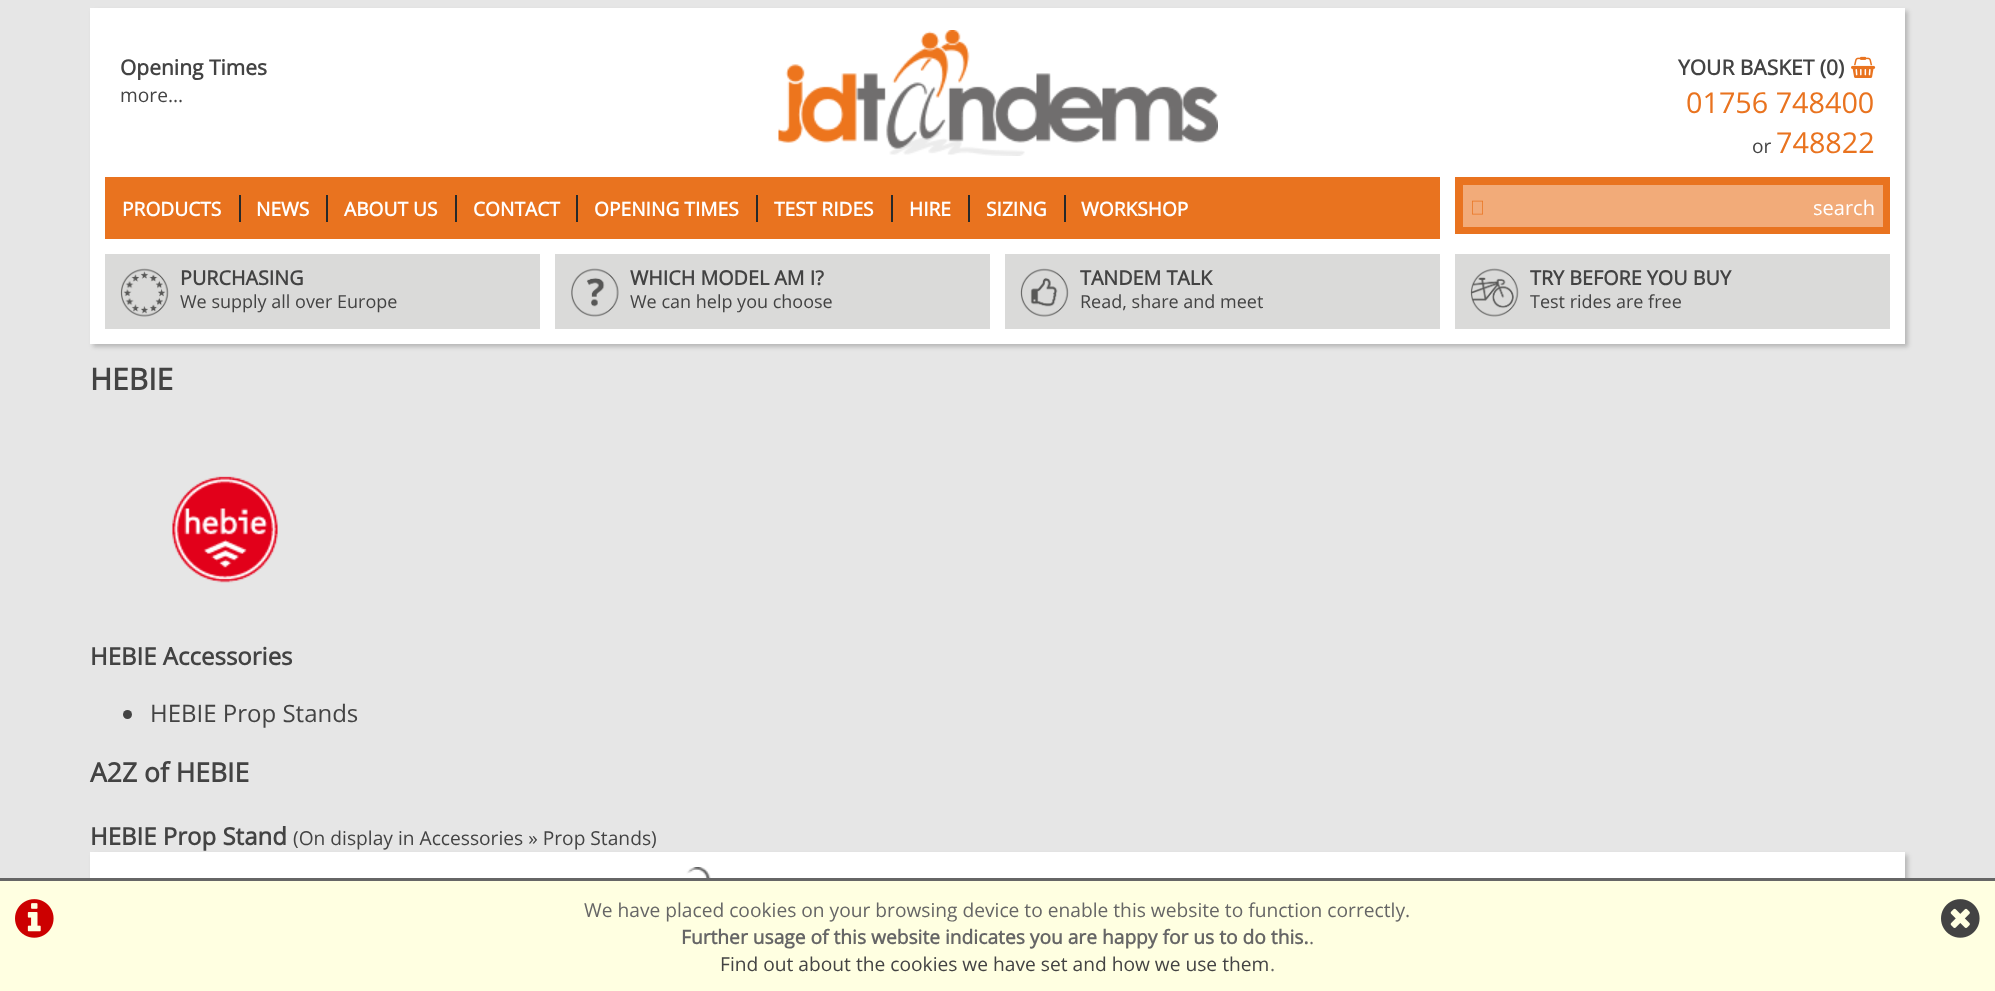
<?xml version="1.0" encoding="UTF-8"?>
<svg xmlns="http://www.w3.org/2000/svg" xmlns:xlink="http://www.w3.org/1999/xlink" width="1995" height="991">
  <rect width="100%" height="100%" fill="#e6e6e6" />
  <rect x="93" y="11" width="1815" height="336" fill="#000000" fill-opacity="0.2" filter="blur(2px)" />
  <rect x="90" y="8" width="1815" height="336" fill="#ffffff" />
  <image x="778" y="30" width="440" height="126" xlink:href="image1.png" />
  <image x="1851" y="56" width="25" height="22" xlink:href="image2.png" />
  <rect x="105" y="177" width="1335" height="62" fill="#e9731f" />
  <rect x="239" y="195" width="2" height="27" fill="#26292a" />
  <rect x="326" y="195" width="2" height="27" fill="#26292a" />
  <rect x="455" y="195" width="2" height="27" fill="#26292a" />
  <rect x="576" y="195" width="2" height="27" fill="#26292a" />
  <rect x="756" y="195" width="2" height="27" fill="#26292a" />
  <rect x="891" y="195" width="2" height="27" fill="#26292a" />
  <rect x="968" y="195" width="2" height="27" fill="#26292a" />
  <rect x="1064" y="195" width="2" height="27" fill="#26292a" />
  <rect x="1455" y="177" width="435" height="57" fill="#e9731f" />
  <rect x="1463" y="185" width="420" height="42" fill="#f2ab79" />
  <image x="1472" y="200" width="11" height="15" xlink:href="image3.png" />
  <rect x="105" y="254" width="435" height="75" fill="#dadad9" />
  <image x="120" y="268" width="49" height="49" xlink:href="image4.png" />
  <rect x="555" y="254" width="435" height="75" fill="#dadad9" />
  <image x="571" y="268" width="48" height="49" xlink:href="image5.png" />
  <rect x="1005" y="254" width="435" height="75" fill="#dadad9" />
  <image x="1020" y="268" width="49" height="49" xlink:href="image6.png" />
  <rect x="1455" y="254" width="435" height="75" fill="#dadad9" />
  <image x="1470" y="268" width="49" height="49" xlink:href="image7.png" />
  <image x="172" y="476" width="106" height="107" xlink:href="image8.png" />
  <circle cx="127.5" cy="714.5" r="4.5" fill="#434343" />
  <rect x="93" y="855" width="1815" height="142" fill="#000000" fill-opacity="0.2" filter="blur(2px)" />
  <rect y="881" width="1995" height="110" fill="#ffffe1" />
  <rect y="878" width="1995" height="3" fill="#666666" />
  <image x="15" y="899" width="39" height="39" xlink:href="image9.png" />
  <image x="1941" y="899" width="39" height="39" xlink:href="image10.png" />
  <rect x="90" y="852" width="1815" height="26" fill="#ffffff" />
  <image x="580" y="867" width="162" height="11" xlink:href="image11.png" />
  <text x="120" y="75" style="font-family: Open Sans; font-size: 21px; font-weight: bold; fill: #434343">Opening Times</text>
  <text x="120" y="102" style="font-family: Open Sans; font-size: 19.2px; fill: #434343">more...</text>
  <text x="1678" y="75" style="font-family: Open Sans; font-size: 21px; font-weight: bold; fill: #434343">YOUR BASKET (0)</text>
  <text x="1686" y="113" style="font-family: Open Sans; font-size: 28.75px; fill: #e9731f">01756 748400</text>
  <text x="1752" y="153" style="font-family: Open Sans; font-size: 19.2px; fill: #434343">or</text>
  <text x="1776" y="153" style="font-family: Open Sans; font-size: 28.75px; fill: #e9731f">748822</text>
  <text x="122" y="216" style="font-family: Open Sans; font-size: 19.2px; font-weight: bold; fill: #ffffff">PRODUCTS</text>
  <text x="256" y="216" style="font-family: Open Sans; font-size: 19.2px; font-weight: bold; fill: #ffffff">NEWS</text>
  <text x="344" y="216" style="font-family: Open Sans; font-size: 19.2px; font-weight: bold; fill: #ffffff">ABOUT US</text>
  <text x="473" y="216" style="font-family: Open Sans; font-size: 19.2px; font-weight: bold; fill: #ffffff">CONTACT</text>
  <text x="594" y="216" style="font-family: Open Sans; font-size: 19.2px; font-weight: bold; fill: #ffffff">OPENING TIMES</text>
  <text x="774" y="216" style="font-family: Open Sans; font-size: 19.2px; font-weight: bold; fill: #ffffff">TEST RIDES</text>
  <text x="909" y="216" style="font-family: Open Sans; font-size: 19.2px; font-weight: bold; fill: #ffffff">HIRE</text>
  <text x="986" y="216" style="font-family: Open Sans; font-size: 19.2px; font-weight: bold; fill: #ffffff">SIZING</text>
  <text x="1081" y="216" style="font-family: Open Sans; font-size: 19.2px; font-weight: bold; fill: #ffffff">WORKSHOP</text>
  <text x="1813" y="215" style="font-family: Open Sans; font-size: 20px; fill: #ffffff">search</text>
  <text x="180" y="285" style="font-family: Open Sans; font-size: 19.75px; font-weight: bold; fill: #434343">PURCHASING</text>
  <text x="180" y="308" style="font-family: Open Sans; font-size: 18px; fill: #434343">We supply all over Europe</text>
  <text x="630" y="285" style="font-family: Open Sans; font-size: 19.75px; font-weight: bold; fill: #434343">WHICH MODEL AM I?</text>
  <text x="630" y="308" style="font-family: Open Sans; font-size: 18px; fill: #434343">We can help you choose</text>
  <text x="1080" y="285" style="font-family: Open Sans; font-size: 19.75px; font-weight: bold; fill: #434343">TANDEM TALK</text>
  <text x="1080" y="308" style="font-family: Open Sans; font-size: 18px; fill: #434343">Read, share and meet</text>
  <text x="1530" y="285" style="font-family: Open Sans; font-size: 19.75px; font-weight: bold; fill: #434343">TRY BEFORE YOU BUY</text>
  <text x="1530" y="308" style="font-family: Open Sans; font-size: 18px; fill: #434343">Test rides are free</text>
  <text x="90" y="390" style="font-family: Open Sans; font-size: 30px; font-weight: bold; fill: #434343">HEBIE</text>
  <text x="90" y="665" style="font-family: Open Sans; font-size: 24px; font-weight: bold; fill: #434343">HEBIE Accessories</text>
  <text x="150" y="722" style="font-family: Open Sans; font-size: 24px; fill: #434343">HEBIE Prop Stands</text>
  <text x="90" y="782" style="font-family: Open Sans; font-size: 26.5px; font-weight: bold; fill: #434343">A2Z of HEBIE</text>
  <text x="90" y="845" style="font-family: Open Sans; font-size: 24px; font-weight: bold; fill: #434343">HEBIE Prop Stand</text>
  <text x="293" y="845" style="font-family: Open Sans; font-size: 19.2px; fill: #434343">(On display in Accessories » Prop Stands)</text>
  <text x="584" y="917" style="font-family: Open Sans; font-size: 19.2px; fill: #666666">We have placed cookies on your browsing device to enable this website to function correctly.</text>
  <text x="681" y="944" style="font-family: Open Sans; font-size: 19.2px; font-weight: bold; fill: #666666">Further usage of this website indicates you are happy for us to do this.</text>
  <text x="1309" y="944" style="font-family: Open Sans; font-size: 19.2px; fill: #666666">.</text>
  <text x="720" y="971" style="font-family: Open Sans; font-size: 19.2px; fill: #434343">Find out about the cookies we have set and how we use them</text>
  <text x="1270" y="971" style="font-family: Open Sans; font-size: 19.2px; fill: #666666">.</text>
</svg>
